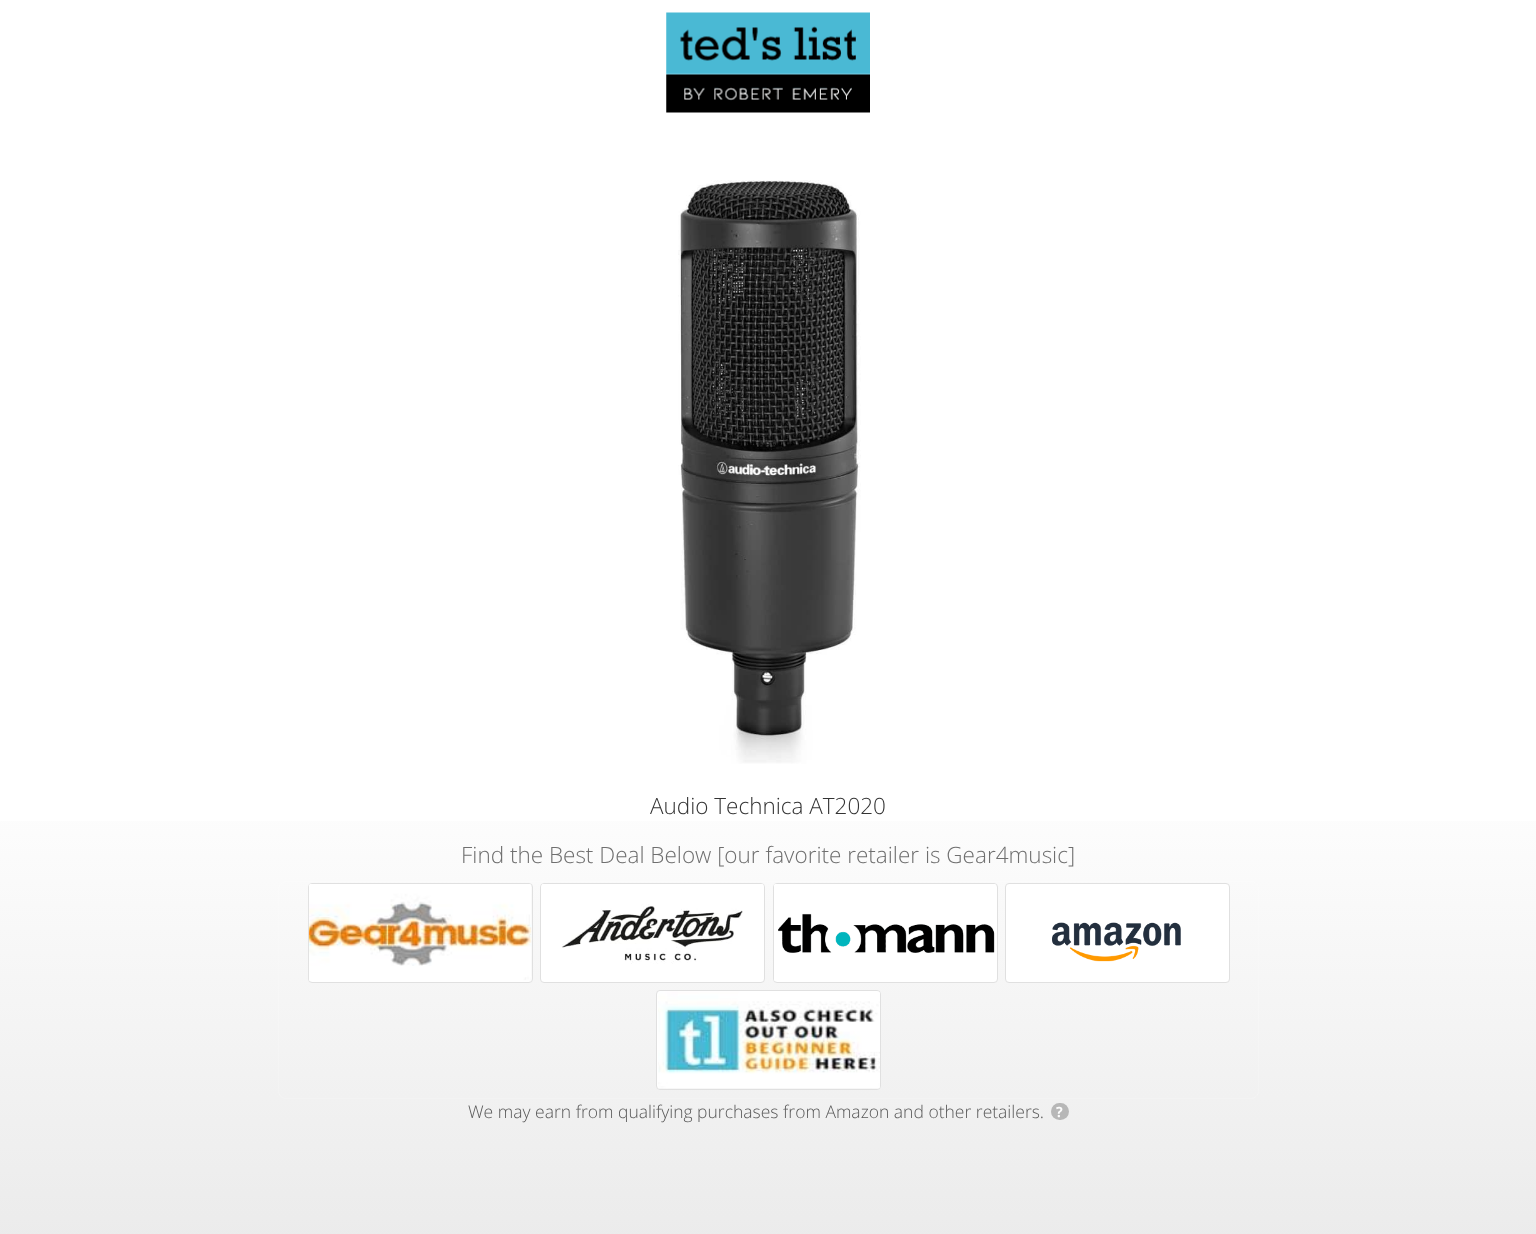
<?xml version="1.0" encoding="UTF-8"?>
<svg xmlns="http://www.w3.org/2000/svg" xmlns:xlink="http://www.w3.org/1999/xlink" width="1536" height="1234">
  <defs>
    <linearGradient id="g1" gradientUnits="userSpaceOnUse" x1="768" y1="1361" x2="768" y2="761"><stop offset="0" stop-color="#e6e6e6" /><stop offset="1" stop-color="#ffffff" /></linearGradient>
  </defs>
  <rect width="100%" height="100%" fill="#ffffff" />
  <image x="666" y="12" width="204" height="101" xlink:href="image1.png" />
  <image x="678" y="180" width="183" height="584" xlink:href="image2.png" />
  <rect y="821" width="1536" height="413" fill="url(#g1)" />
  <rect x="278.5" y="881.5" width="980" height="217" rx="7.5" fill="none" stroke="#ffffff" stroke-opacity="0.2" />
  <rect x="308.5" y="883.5" width="224" height="99" rx="3.5" fill="#ffffff" stroke="#e0e0e0" />
  <image x="308" y="884" width="224" height="97" xlink:href="image3.png" />
  <rect x="540.5" y="883.5" width="224" height="99" rx="3.5" fill="#ffffff" stroke="#e0e0e0" />
  <image x="541" y="884" width="223" height="80" xlink:href="image4.png" />
  <rect x="773.5" y="883.5" width="224" height="99" rx="3.5" fill="#ffffff" stroke="#e0e0e0" />
  <image x="774" y="884" width="222" height="97" xlink:href="image5.png" />
  <rect x="1005.5" y="883.5" width="224" height="99" rx="3.5" fill="#ffffff" stroke="#e0e0e0" />
  <image x="1052" y="922" width="129" height="40" xlink:href="image6.png" />
  <rect x="656.5" y="990.5" width="224" height="99" rx="3.5" fill="#ffffff" stroke="#e0e0e0" />
  <image x="658" y="991" width="222" height="98" xlink:href="image7.png" />
  <rect x="1051" y="1103" width="18" height="17" rx="8.5" fill="#b7b7b7" />
  <text x="650" y="814" style="font-family: Open Sans; font-size: 22.5px; font-weight: 300; fill: #333333">Audio Technica AT2020</text>
  <text x="461" y="863" style="font-family: Open Sans; font-size: 22.5px; font-weight: 300; fill: #6f6f6f">Find the Best Deal Below [our favorite retailer is Gear4music]</text>
  <text x="468" y="1118" style="font-family: Open Sans; font-size: 17.5px; font-weight: 300; fill: #595959">We may earn from qualifying purchases from Amazon and other retailers.</text>
  <text x="1056" y="1117" style="font-family: Open Sans; font-size: 14px; font-weight: bold; fill: #fcfcfc">?</text>
</svg>
